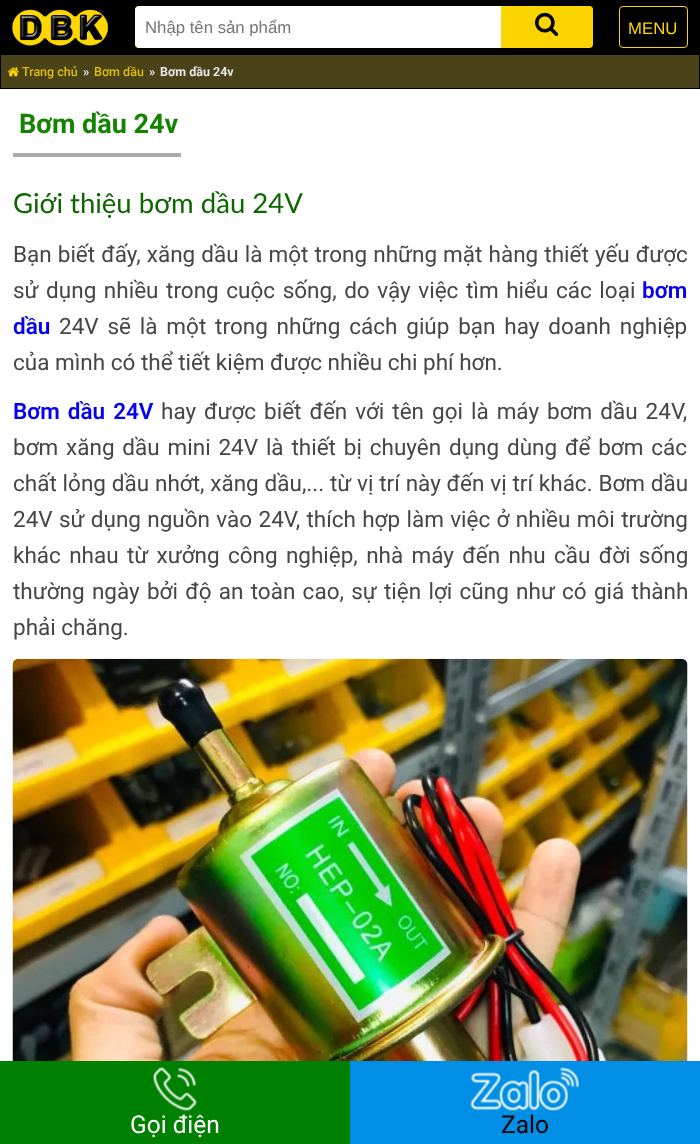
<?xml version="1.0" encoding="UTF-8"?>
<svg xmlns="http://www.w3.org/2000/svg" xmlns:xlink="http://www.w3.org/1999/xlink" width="700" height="1144">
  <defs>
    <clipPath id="clip1"><rect x="135" y="18" width="366" height="18" /></clipPath>
  </defs>
  <rect width="100%" height="100%" fill="#f7f7f7" />
  <rect width="700" height="54" fill="#000000" />
  <image x="12" y="9" width="96" height="37" xlink:href="image1.png" />
  <rect x="135" y="6" width="458" height="42" rx="4" fill="#fcd500" />
  <path d="M 139 6 h 362 v 42 h -362 c -2 0 -4 -2 -4 -4 v -34 c 0 -2 2 -4 4 -4 z" fill="#ffffff" />
  <path d="M 501 6 h 88 c 2 0 4 2 4 4 v 24 c 0 2 -2 4 -4 4 h -88 z" fill="#fcd500" />
  <image x="535" y="12" width="24" height="25" xlink:href="image2.png" />
  <rect x="619.5" y="6.5" width="68" height="41" rx="3.5" fill="none" stroke="#fcd500" />
  <rect x="0.5" y="54.5" width="699" height="34" fill="#4a431a" stroke="#000000" />
  <image x="7" y="67" width="12" height="10" xlink:href="image3.png" />
  <rect y="90" width="700" height="971" fill="#ffffff" />
  <rect x="13" y="153" width="168" height="4" fill="#ababab" />
  <image x="12" y="658" width="676" height="403" xlink:href="image4.png" />
  <rect y="1061" width="350" height="83" fill="#008000" />
  <image x="153" y="1067" width="44" height="44" xlink:href="image5.png" />
  <rect x="350" y="1061" width="350" height="83" fill="#008fe5" />
  <image x="470" y="1067" width="109" height="44" xlink:href="image6.png" />
  <g clip-path="url(#clip1)">
    <text x="145" y="33" style="font-family: Liberation Sans; font-size: 16.75px; fill: #757575">Nhập tên sản phẩm</text>
  </g>
  <text x="628" y="34" style="font-family: Liberation Sans; font-size: 16.75px; fill: #fcd500">MENU</text>
  <text x="22" y="76" style="font-family: Roboto; font-size: 12.5px; font-weight: 500; fill: #e2bf00">Trang chủ</text>
  <text x="83" y="76" style="font-family: Roboto; font-size: 12.5px; font-weight: bold; fill: #e6e6e6">»</text>
  <text x="94" y="76" style="font-family: Roboto; font-size: 12.5px; font-weight: 500; fill: #e2bf00">Bơm dầu</text>
  <text x="149" y="76" style="font-family: Roboto; font-size: 12.5px; font-weight: bold; fill: #e6e6e6">»</text>
  <text x="160" y="76" style="font-family: Roboto; font-size: 12.5px; font-weight: bold; fill: #e6e6e6">Bơm dầu 24v</text>
  <text x="19" y="133" style="font-family: Roboto; font-size: 27px; font-weight: bold; fill: #148300">Bơm dầu 24v</text>
  <text x="13" y="213" style="font-family: Lato; font-size: 27.5px; fill: #0e6600">Giới thiệu bơm dầu 24V</text>
  <text x="13" y="262" word-spacing="0.5" style="font-family: Roboto; font-size: 22.5px; fill: #464646">Bạn biết đấy, xăng dầu là một trong những mặt hàng thiết yếu được</text>
  <text x="13" y="298" word-spacing="2" style="font-family: Roboto; font-size: 22.5px; fill: #464646">sử dụng nhiều trong cuộc sống, do vậy việc tìm hiểu các loại</text>
  <text x="642" y="298" style="font-family: Roboto; font-size: 22.5px; font-weight: 600; fill: #0400f5">bơm</text>
  <text x="13" y="334" style="font-family: Roboto; font-size: 22.5px; font-weight: 600; fill: #0400f5">dầu</text>
  <text x="59" y="334" word-spacing="3.25" style="font-family: Roboto; font-size: 22.5px; fill: #464646">24V sẽ là một trong những cách giúp bạn hay doanh nghiệp</text>
  <text x="13" y="370" style="font-family: Roboto; font-size: 22.5px; fill: #464646">của mình có thể tiết kiệm được nhiều chi phí hơn.</text>
  <text x="13" y="419" word-spacing="2.4" style="font-family: Roboto; font-size: 22.5px; font-weight: 600; fill: #0400f5">Bơm dầu 24V</text>
  <text x="161" y="419" word-spacing="2.4" style="font-family: Roboto; font-size: 22.5px; fill: #464646">hay được biết đến với tên gọi là máy bơm dầu 24V,</text>
  <text x="13" y="455" word-spacing="2.25" style="font-family: Roboto; font-size: 22.5px; fill: #464646">bơm xăng dầu mini 24V là thiết bị chuyên dụng dùng để bơm các</text>
  <text x="13" y="491" word-spacing="0.25" style="font-family: Roboto; font-size: 22.5px; fill: #464646">chất lỏng dầu nhớt, xăng dầu,... từ vị trí này đến vị trí khác. Bơm dầu</text>
  <text x="13" y="527" word-spacing="0.75" style="font-family: Roboto; font-size: 22.5px; fill: #464646">24V sử dụng nguồn vào 24V, thích hợp làm việc ở nhiều môi trường</text>
  <text x="13" y="563" word-spacing="2.75" style="font-family: Roboto; font-size: 22.5px; fill: #464646">khác nhau từ xưởng công nghiệp, nhà máy đến nhu cầu đời sống</text>
  <text x="13" y="599" word-spacing="1.7" style="font-family: Roboto; font-size: 22.5px; fill: #464646">thường ngày bởi độ an toàn cao, sự tiện lợi cũng như có giá thành</text>
  <text x="13" y="635" style="font-family: Roboto; font-size: 22.5px; fill: #464646">phải chăng.</text>
  <text x="130" y="1133" style="font-family: Roboto; font-size: 24.5px; fill: #ffffff">Gọi điện</text>
  <text x="501" y="1133" style="font-family: Roboto; font-size: 24.5px; fill: #000000">Zalo</text>
</svg>
